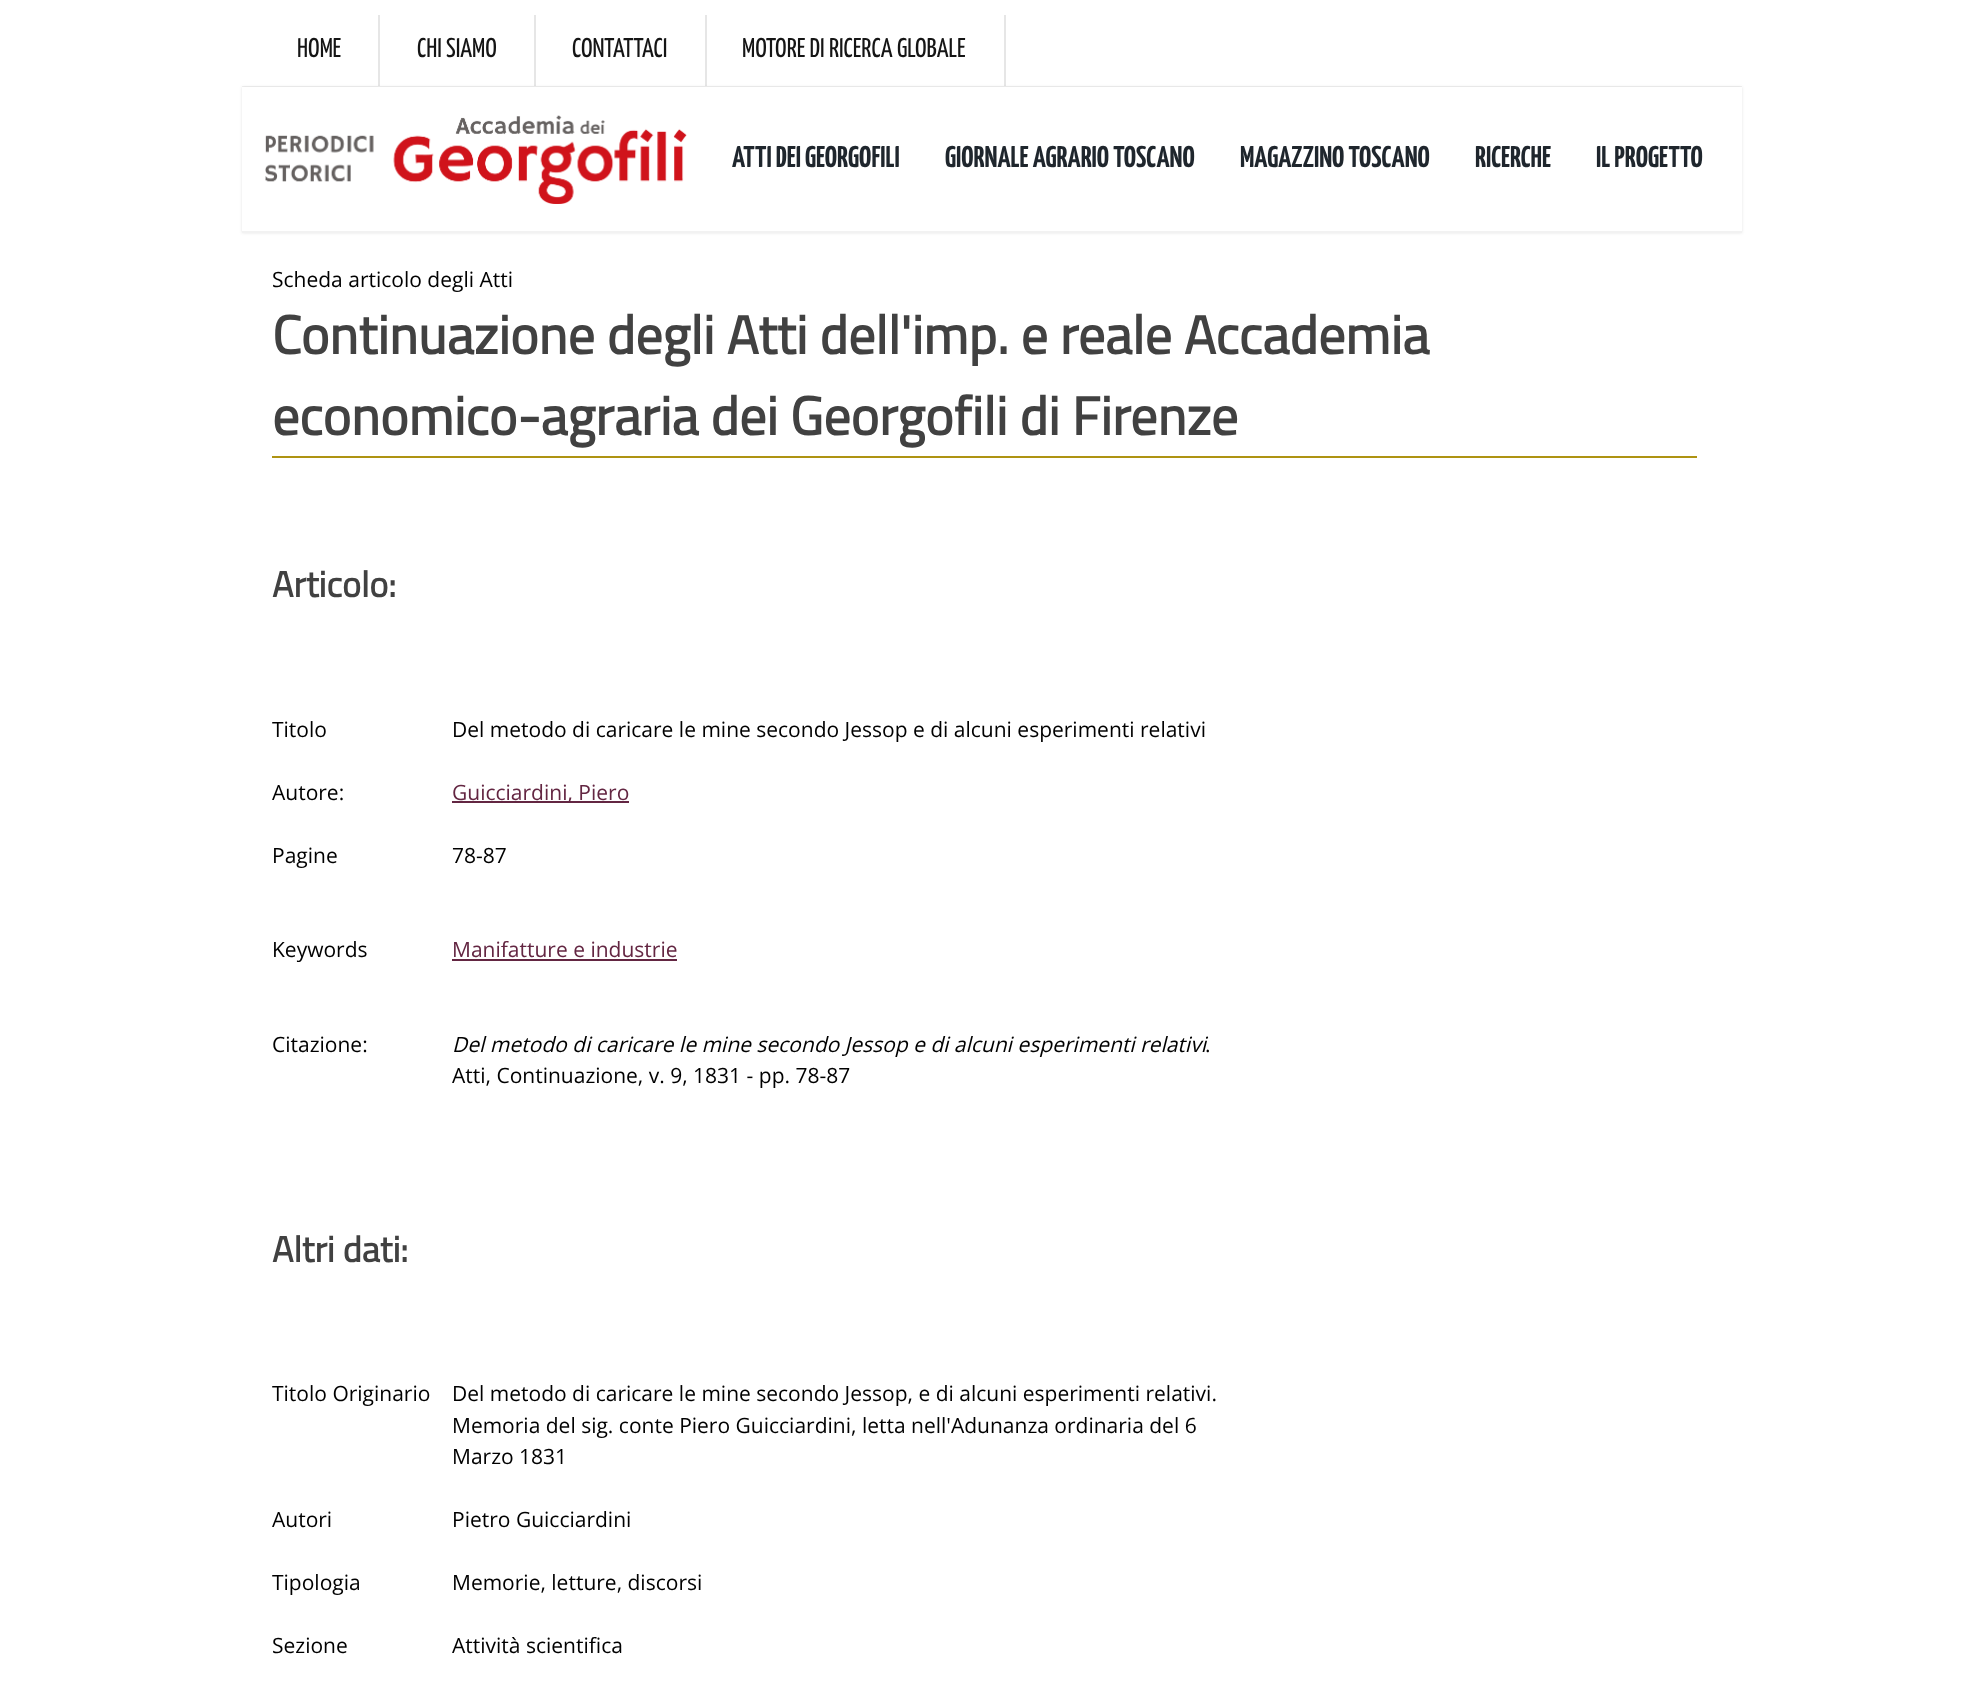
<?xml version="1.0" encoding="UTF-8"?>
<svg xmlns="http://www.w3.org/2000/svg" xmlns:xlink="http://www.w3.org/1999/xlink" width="1983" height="1681">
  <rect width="100%" height="100%" fill="#ffffff" />
  <rect x="242" y="86" width="1500" height="1" fill="#f2f2f2" />
  <rect x="378" y="15" width="2" height="71" fill="#e6e6e6" />
  <rect x="534" y="15" width="2" height="71" fill="#e6e6e6" />
  <rect x="705" y="15" width="2" height="71" fill="#e6e6e6" />
  <rect x="1004" y="15" width="2" height="71" fill="#e6e6e6" />
  <rect x="242" y="87" width="1500" height="146" fill="#000000" fill-opacity="0.1" filter="blur(1.5px)" />
  <rect x="242" y="87" width="1500" height="144" fill="#ffffff" />
  <rect x="242" y="231" width="1500" height="2" fill="#f2f2f2" />
  <image x="265" y="115" width="422" height="89" xlink:href="image1.png" />
  <rect x="272" y="456" width="1425" height="2" fill="#ae9312" />
  <rect x="452" y="801" width="177" height="2" fill="#632642" />
  <rect x="452" y="959" width="225" height="2" fill="#632642" />
  <text x="297" y="57" style="font-family: Yanone Kaffeesatz; font-size: 27px; fill: #151515">HOME</text>
  <text x="417" y="57" style="font-family: Yanone Kaffeesatz; font-size: 27px; fill: #151515">CHI SIAMO</text>
  <text x="572" y="57" style="font-family: Yanone Kaffeesatz; font-size: 27px; fill: #151515">CONTATTACI</text>
  <text x="742" y="57" style="font-family: Yanone Kaffeesatz; font-size: 27px; fill: #151515">MOTORE DI RICERCA GLOBALE</text>
  <text x="732" y="167" style="font-family: Yanone Kaffeesatz; font-size: 30px; font-weight: bold; fill: #1f262d">ATTI DEI GEORGOFILI</text>
  <text x="945" y="167" style="font-family: Yanone Kaffeesatz; font-size: 30px; font-weight: bold; fill: #1f262d">GIORNALE AGRARIO TOSCANO</text>
  <text x="1240" y="167" style="font-family: Yanone Kaffeesatz; font-size: 30px; font-weight: bold; fill: #1f262d">MAGAZZINO TOSCANO</text>
  <text x="1475" y="167" style="font-family: Yanone Kaffeesatz; font-size: 30px; font-weight: bold; fill: #1f262d">RICERCHE</text>
  <text x="1596" y="167" style="font-family: Yanone Kaffeesatz; font-size: 30px; font-weight: bold; fill: #1f262d">IL PROGETTO</text>
  <text x="272" y="287" style="font-family: Open Sans; font-size: 21px; fill: #000000">Scheda articolo degli Atti</text>
  <text x="272" y="354" style="font-family: Titillium Web; font-size: 54px; font-weight: bold; fill: #414141">Continuazione degli Atti dell'imp. e reale Accademia</text>
  <text x="272" y="435" style="font-family: Titillium Web; font-size: 54px; font-weight: bold; fill: #414141">economico-agraria dei Georgofili di Firenze</text>
  <text x="272" y="597" style="font-family: Titillium Web; font-size: 36px; font-weight: bold; fill: #414141">Articolo:</text>
  <text x="272" y="737" style="font-family: Open Sans; font-size: 21px; fill: #000000">Titolo</text>
  <text x="452" y="737" style="font-family: Open Sans; font-size: 21px; fill: #000000">Del metodo di caricare le mine secondo Jessop e di alcuni esperimenti relativi</text>
  <text x="272" y="800" style="font-family: Open Sans; font-size: 21px; fill: #000000">Autore:</text>
  <text x="452" y="800" style="font-family: Open Sans; font-size: 21px; fill: #632642">Guicciardini, Piero</text>
  <text x="272" y="863" style="font-family: Open Sans; font-size: 21px; fill: #000000">Pagine</text>
  <text x="452" y="863" style="font-family: Open Sans; font-size: 21px; fill: #000000">78-87</text>
  <text x="272" y="957" style="font-family: Open Sans; font-size: 21px; fill: #000000">Keywords</text>
  <text x="452" y="957" style="font-family: Open Sans; font-size: 21px; fill: #632642">Manifatture e industrie</text>
  <text x="272" y="1052" style="font-family: Open Sans; font-size: 21px; fill: #000000">Citazione:</text>
  <text x="452" y="1052" style="font-family: Open Sans; font-size: 21px; font-style: italic; fill: #000000">Del metodo di caricare le mine secondo Jessop e di alcuni esperimenti relativi</text>
  <text x="1205" y="1052" style="font-family: Open Sans; font-size: 21px; fill: #000000">.</text>
  <text x="452" y="1083" style="font-family: Open Sans; font-size: 21px; fill: #000000">Atti, Continuazione, v. 9, 1831 - pp. 78-87</text>
  <text x="272" y="1262" style="font-family: Titillium Web; font-size: 36px; font-weight: bold; fill: #414141">Altri dati:</text>
  <text x="272" y="1401" style="font-family: Open Sans; font-size: 21px; fill: #000000">Titolo Originario</text>
  <text x="452" y="1401" style="font-family: Open Sans; font-size: 21px; fill: #000000">Del metodo di caricare le mine secondo Jessop, e di alcuni esperimenti relativi.</text>
  <text x="452" y="1433" style="font-family: Open Sans; font-size: 21px; fill: #000000">Memoria del sig. conte Piero Guicciardini, letta nell'Adunanza ordinaria del 6</text>
  <text x="452" y="1464" style="font-family: Open Sans; font-size: 21px; fill: #000000">Marzo 1831</text>
  <text x="272" y="1527" style="font-family: Open Sans; font-size: 21px; fill: #000000">Autori</text>
  <text x="452" y="1527" style="font-family: Open Sans; font-size: 21px; fill: #000000">Pietro Guicciardini</text>
  <text x="272" y="1590" style="font-family: Open Sans; font-size: 21px; fill: #000000">Tipologia</text>
  <text x="452" y="1590" style="font-family: Open Sans; font-size: 21px; fill: #000000">Memorie, letture, discorsi</text>
  <text x="272" y="1653" style="font-family: Open Sans; font-size: 21px; fill: #000000">Sezione</text>
  <text x="452" y="1653" style="font-family: Open Sans; font-size: 21px; fill: #000000">Attività scientifica</text>
</svg>
